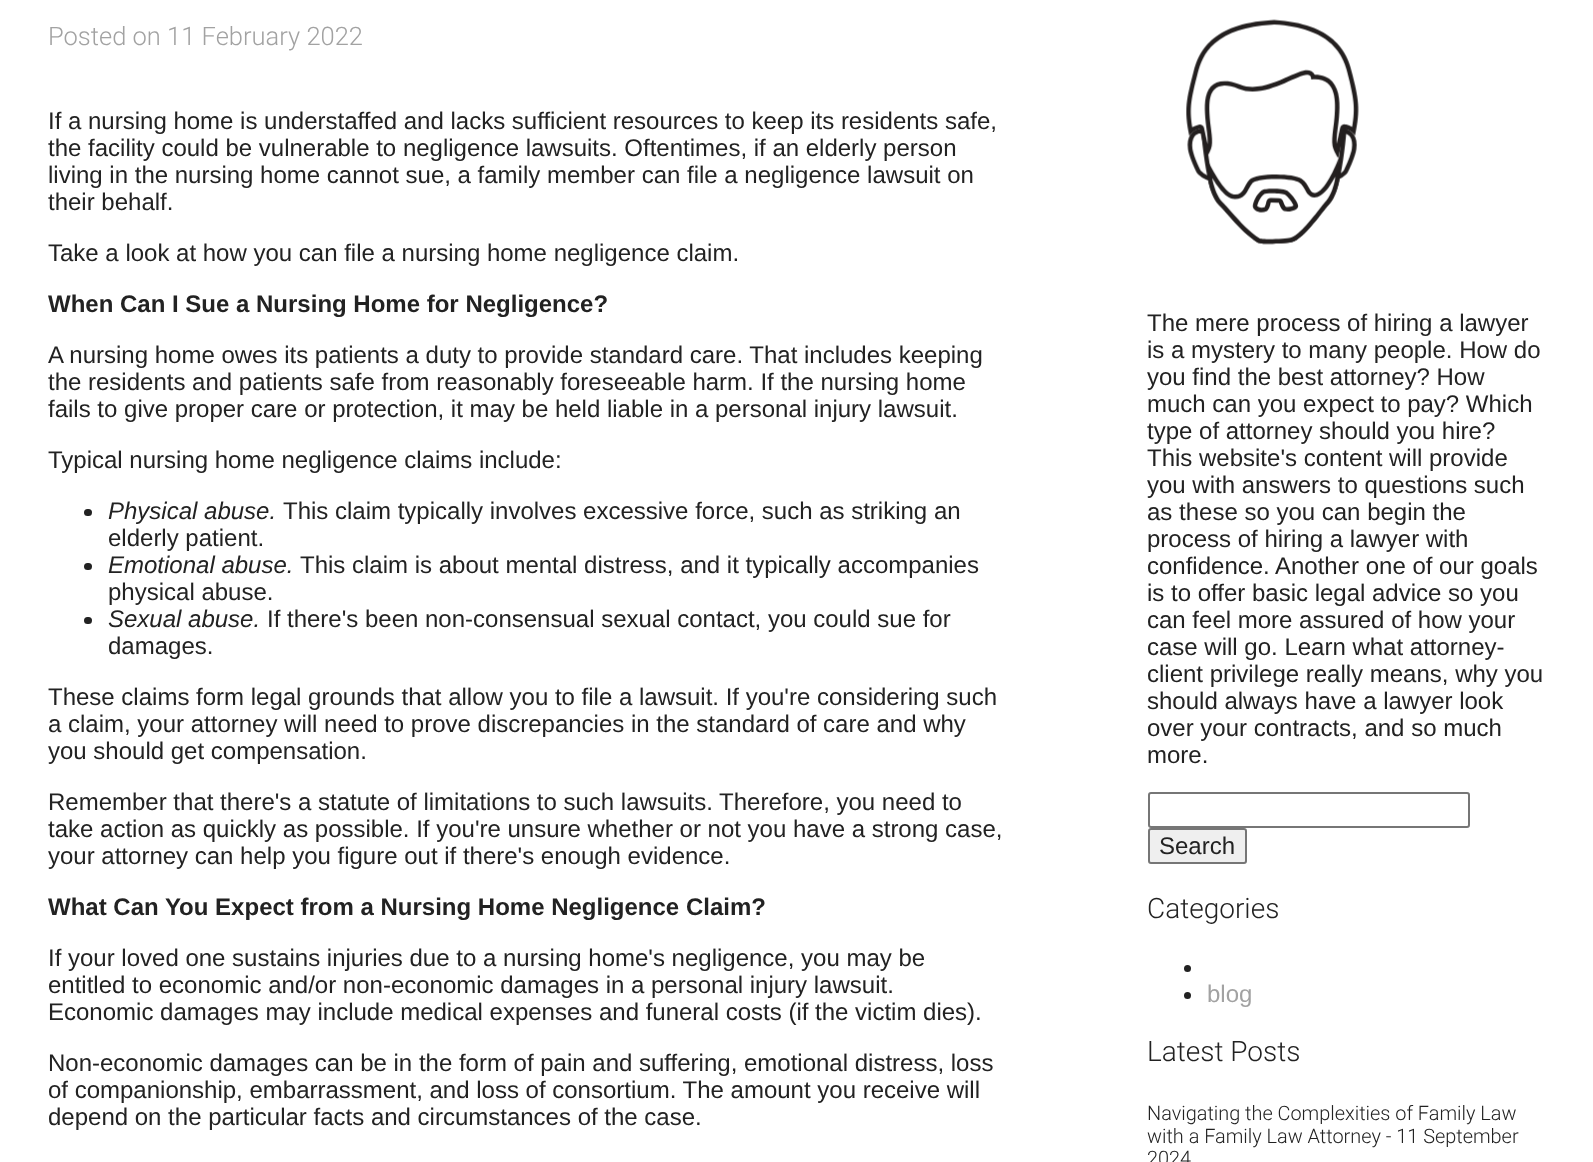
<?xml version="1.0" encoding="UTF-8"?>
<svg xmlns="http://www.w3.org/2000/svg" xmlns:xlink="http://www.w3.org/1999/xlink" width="1593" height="1162">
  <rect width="100%" height="100%" fill="#ffffff" />
  <rect x="84" y="509" width="8" height="7" rx="3.5" fill="#222222" />
  <rect x="84" y="563" width="8" height="7" rx="3.5" fill="#222222" />
  <rect x="84" y="617" width="8" height="7" rx="3.5" fill="#222222" />
  <image x="1186" y="19" width="173" height="226" xlink:href="image1.png" />
  <rect x="1149" y="793" width="320" height="34" rx="2" fill="none" stroke="#767676" stroke-width="2" />
  <rect x="1149" y="829" width="97" height="34" rx="2" fill="#efefef" stroke="#767676" stroke-width="2" />
  <circle cx="1187.5" cy="968.5" r="3.5" fill="#222222" />
  <circle cx="1187.5" cy="995.5" r="3.5" fill="#222222" />
  <text x="48" y="45" style="font-family: Roboto; font-size: 25.5px; font-weight: 300; fill: #a2a2a2">Posted on 11 February 2022</text>
  <text x="48" y="129" style="font-family: Liberation Sans; font-size: 24px; fill: #222222">If a nursing home is understaffed and lacks sufficient resources to keep its residents safe,</text>
  <text x="48" y="156" style="font-family: Liberation Sans; font-size: 24px; fill: #222222">the facility could be vulnerable to negligence lawsuits. Oftentimes, if an elderly person</text>
  <text x="48" y="183" style="font-family: Liberation Sans; font-size: 24px; fill: #222222">living in the nursing home cannot sue, a family member can file a negligence lawsuit on</text>
  <text x="48" y="210" style="font-family: Liberation Sans; font-size: 24px; fill: #222222">their behalf.</text>
  <text x="48" y="261" style="font-family: Liberation Sans; font-size: 24px; fill: #222222">Take a look at how you can file a nursing home negligence claim.</text>
  <text x="48" y="312" style="font-family: Liberation Sans; font-size: 24px; font-weight: bold; fill: #222222">When Can I Sue a Nursing Home for Negligence?</text>
  <text x="48" y="363" style="font-family: Liberation Sans; font-size: 24px; fill: #222222">A nursing home owes its patients a duty to provide standard care. That includes keeping</text>
  <text x="48" y="390" style="font-family: Liberation Sans; font-size: 24px; fill: #222222">the residents and patients safe from reasonably foreseeable harm. If the nursing home</text>
  <text x="48" y="417" style="font-family: Liberation Sans; font-size: 24px; fill: #222222">fails to give proper care or protection, it may be held liable in a personal injury lawsuit.</text>
  <text x="48" y="468" style="font-family: Liberation Sans; font-size: 24px; fill: #222222">Typical nursing home negligence claims include:</text>
  <text x="108" y="519" style="font-family: Liberation Sans; font-size: 24px; font-style: italic; fill: #222222">Physical abuse.</text>
  <text x="283" y="519" style="font-family: Liberation Sans; font-size: 24px; fill: #222222">This claim typically involves excessive force, such as striking an</text>
  <text x="108" y="546" style="font-family: Liberation Sans; font-size: 24px; fill: #222222">elderly patient.</text>
  <text x="108" y="573" style="font-family: Liberation Sans; font-size: 24px; font-style: italic; fill: #222222">Emotional abuse.</text>
  <text x="300" y="573" style="font-family: Liberation Sans; font-size: 24px; fill: #222222">This claim is about mental distress, and it typically accompanies</text>
  <text x="108" y="600" style="font-family: Liberation Sans; font-size: 24px; fill: #222222">physical abuse.</text>
  <text x="108" y="627" style="font-family: Liberation Sans; font-size: 24px; font-style: italic; fill: #222222">Sexual abuse.</text>
  <text x="267" y="627" style="font-family: Liberation Sans; font-size: 24px; fill: #222222">If there's been non-consensual sexual contact, you could sue for</text>
  <text x="108" y="654" style="font-family: Liberation Sans; font-size: 24px; fill: #222222">damages.</text>
  <text x="48" y="705" style="font-family: Liberation Sans; font-size: 24px; fill: #222222">These claims form legal grounds that allow you to file a lawsuit. If you're considering such</text>
  <text x="48" y="732" style="font-family: Liberation Sans; font-size: 24px; fill: #222222">a claim, your attorney will need to prove discrepancies in the standard of care and why</text>
  <text x="48" y="759" style="font-family: Liberation Sans; font-size: 24px; fill: #222222">you should get compensation.</text>
  <text x="48" y="810" style="font-family: Liberation Sans; font-size: 24px; fill: #222222">Remember that there's a statute of limitations to such lawsuits. Therefore, you need to</text>
  <text x="48" y="837" style="font-family: Liberation Sans; font-size: 24px; fill: #222222">take action as quickly as possible. If you're unsure whether or not you have a strong case,</text>
  <text x="48" y="864" style="font-family: Liberation Sans; font-size: 24px; fill: #222222">your attorney can help you figure out if there's enough evidence.</text>
  <text x="48" y="915" style="font-family: Liberation Sans; font-size: 24px; font-weight: bold; fill: #222222">What Can You Expect from a Nursing Home Negligence Claim?</text>
  <text x="48" y="966" style="font-family: Liberation Sans; font-size: 24px; fill: #222222">If your loved one sustains injuries due to a nursing home's negligence, you may be</text>
  <text x="48" y="993" style="font-family: Liberation Sans; font-size: 24px; fill: #222222">entitled to economic and/or non-economic damages in a personal injury lawsuit.</text>
  <text x="48" y="1020" style="font-family: Liberation Sans; font-size: 24px; fill: #222222">Economic damages may include medical expenses and funeral costs (if the victim dies).</text>
  <text x="48" y="1071" style="font-family: Liberation Sans; font-size: 24px; fill: #222222">Non-economic damages can be in the form of pain and suffering, emotional distress, loss</text>
  <text x="48" y="1098" style="font-family: Liberation Sans; font-size: 24px; fill: #222222">of companionship, embarrassment, and loss of consortium. The amount you receive will</text>
  <text x="48" y="1125" style="font-family: Liberation Sans; font-size: 24px; fill: #222222">depend on the particular facts and circumstances of the case.</text>
  <text x="1147" y="331" style="font-family: Liberation Sans; font-size: 24px; fill: #222222">The mere process of hiring a lawyer</text>
  <text x="1147" y="358" style="font-family: Liberation Sans; font-size: 24px; fill: #222222">is a mystery to many people. How do</text>
  <text x="1147" y="385" style="font-family: Liberation Sans; font-size: 24px; fill: #222222">you find the best attorney? How</text>
  <text x="1147" y="412" style="font-family: Liberation Sans; font-size: 24px; fill: #222222">much can you expect to pay? Which</text>
  <text x="1147" y="439" style="font-family: Liberation Sans; font-size: 24px; fill: #222222">type of attorney should you hire?</text>
  <text x="1147" y="466" style="font-family: Liberation Sans; font-size: 24px; fill: #222222">This website's content will provide</text>
  <text x="1147" y="493" style="font-family: Liberation Sans; font-size: 24px; fill: #222222">you with answers to questions such</text>
  <text x="1147" y="520" style="font-family: Liberation Sans; font-size: 24px; fill: #222222">as these so you can begin the</text>
  <text x="1147" y="547" style="font-family: Liberation Sans; font-size: 24px; fill: #222222">process of hiring a lawyer with</text>
  <text x="1147" y="574" style="font-family: Liberation Sans; font-size: 24px; fill: #222222">confidence.</text>
  <text x="1275" y="574" style="font-family: Liberation Sans; font-size: 24px; fill: #222222">Another one of our goals</text>
  <text x="1147" y="601" style="font-family: Liberation Sans; font-size: 24px; fill: #222222">is to offer basic legal advice so you</text>
  <text x="1147" y="628" style="font-family: Liberation Sans; font-size: 24px; fill: #222222">can feel more assured of how your</text>
  <text x="1147" y="655" style="font-family: Liberation Sans; font-size: 24px; fill: #222222">case will go. Learn what attorney-</text>
  <text x="1147" y="682" style="font-family: Liberation Sans; font-size: 24px; fill: #222222">client privilege really means, why you</text>
  <text x="1147" y="709" style="font-family: Liberation Sans; font-size: 24px; fill: #222222">should always have a lawyer look</text>
  <text x="1147" y="736" style="font-family: Liberation Sans; font-size: 24px; fill: #222222">over your contracts, and so much</text>
  <text x="1147" y="763" style="font-family: Liberation Sans; font-size: 24px; fill: #222222">more.</text>
  <text x="1159" y="854" style="font-family: Liberation Sans; font-size: 24px; fill: #222222">Search</text>
  <text x="1147" y="918" style="font-family: Roboto; font-size: 28px; font-weight: 300; fill: #222222">Categories</text>
  <text x="1207" y="1002" style="font-family: Liberation Sans; font-size: 24px; fill: #a2a2a2">blog</text>
  <text x="1147" y="1061" style="font-family: Roboto; font-size: 28px; font-weight: 300; fill: #222222">Latest Posts</text>
  <text x="1147" y="1120" style="font-family: Roboto; font-size: 19.9px; font-weight: 300; fill: #222222">Navigating the Complexities of Family Law</text>
  <text x="1147" y="1143" style="font-family: Roboto; font-size: 19.9px; font-weight: 300; fill: #222222">with a Family Law Attorney - 11 September</text>
  <text x="1147" y="1165" style="font-family: Roboto; font-size: 19.9px; font-weight: 300; fill: #222222">2024</text>
</svg>
